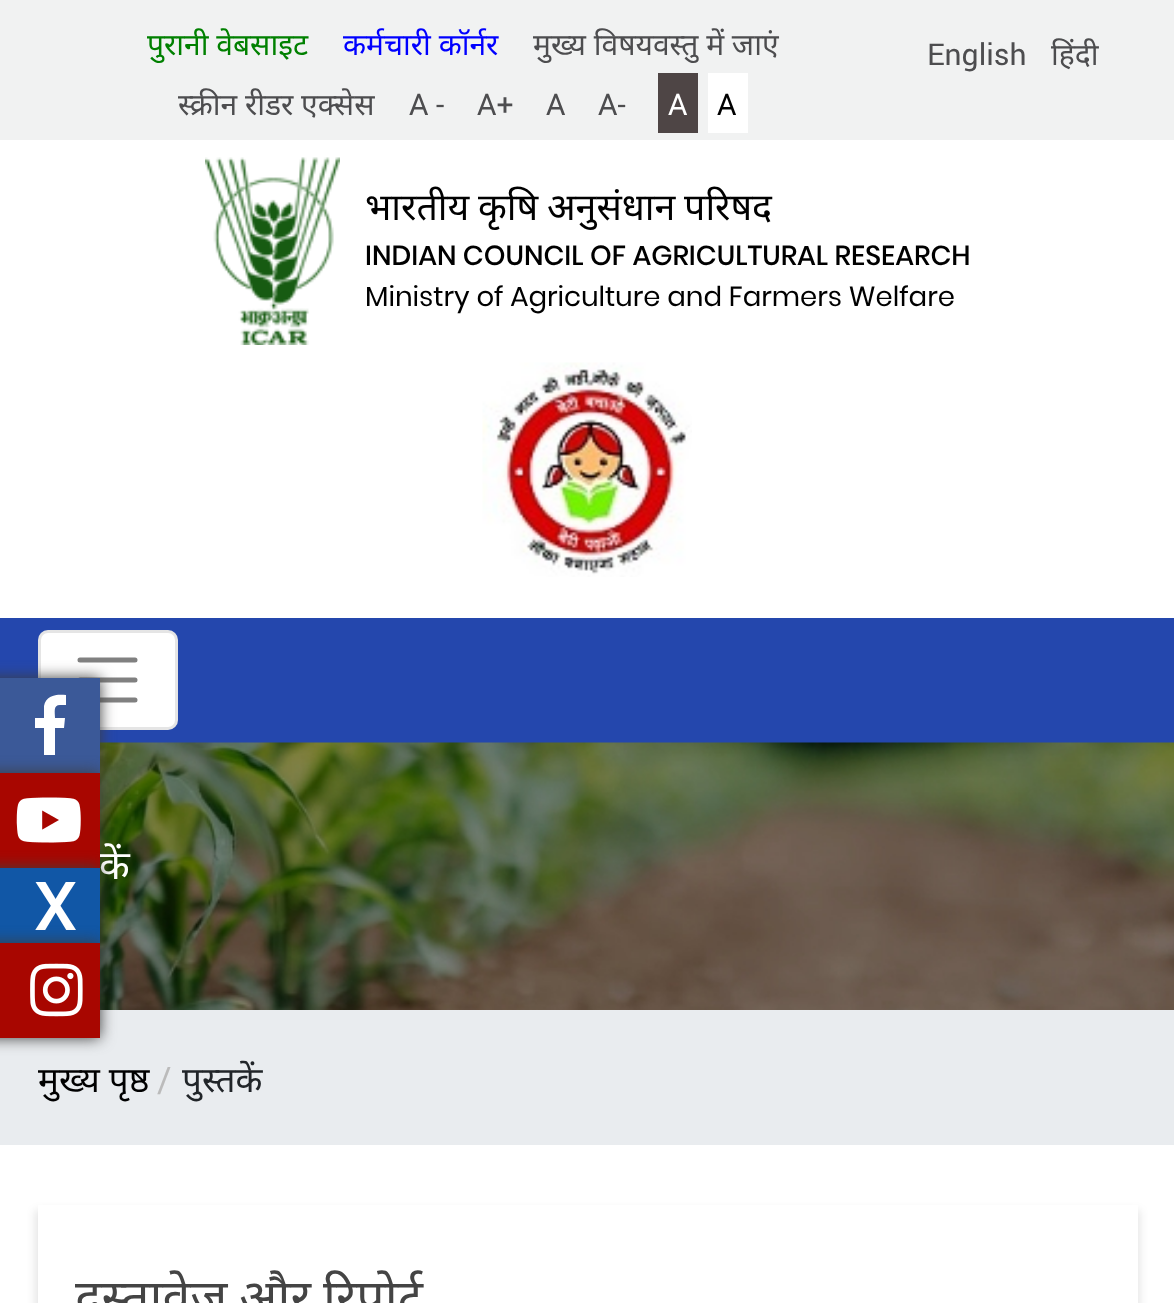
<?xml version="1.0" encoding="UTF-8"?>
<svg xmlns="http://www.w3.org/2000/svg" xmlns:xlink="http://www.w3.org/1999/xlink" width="1174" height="1303">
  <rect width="100%" height="100%" fill="#ffffff" />
  <rect width="1174" height="140" fill="#f1f2f2" />
  <rect x="658" y="73" width="40" height="60" fill="#4e4545" />
  <rect x="708" y="73" width="40" height="60" fill="#ffffff" />
  <image x="205" y="157" width="135" height="188" xlink:href="image1.png" />
  <image x="482" y="362" width="210" height="215" xlink:href="image2.png" />
  <rect y="618" width="1174" height="125" fill="#2447ad" />
  <rect x="38" y="630" width="140" height="100" rx="10" fill="#ffffff" />
  <rect x="39.5" y="631.5" width="137" height="97" rx="8.5" fill="none" stroke="#000000" stroke-opacity="0.1" stroke-width="3" />
  <path d="M 80 660 h 55 m -55 20 h 55 m -55 20 h 55" fill="none" stroke="#808080" stroke-width="5" stroke-linecap="round" />
  <image x="100" y="742" width="1074" height="268" xlink:href="image3.png" />
  <rect y="1010" width="1174" height="135" fill="#e9ecef" />
  <rect x="35" y="1210" width="1105" height="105" fill="#000000" fill-opacity="0.1" filter="blur(4px)" />
  <rect x="38" y="1205" width="1100" height="98" fill="#ffffff" />
  <rect x="-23" y="678" width="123" height="95" fill="#3e3d3d" filter="blur(7.5px)" />
  <rect y="678" width="100" height="95" fill="#3b5998" />
  <path d="M 60 705 c -7 0 -5 7 -5 13 h 10 l -1 10 h -9 v 27 h -11 v -27 h -9 v -10 h 9 v -12 c 2 -11 13 -12 22 -11 v 10 z" fill="#ffffff" />
  <rect x="-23" y="773" width="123" height="95" fill="#3e3d3d" filter="blur(7.5px)" />
  <text x="147" y="55" style="font-family: Noto Sans; font-size: 30px; fill: #008000">पुरानी वेबसाइट</text>
  <text x="343" y="55" style="font-family: Noto Sans; font-size: 30px; fill: #0000ff">कर्मचारी कॉर्नर</text>
  <text x="533" y="55" style="font-family: Noto Sans; font-size: 30px; fill: #4d4d4f">मुख्य विषयवस्तु में जाएं</text>
  <text x="178" y="115" style="font-family: Noto Sans; font-size: 30px; fill: #4d4d4f">स्क्रीन रीडर एक्सेस</text>
  <text x="409" y="115" style="font-family: Roboto; font-size: 30px; fill: #4d4d4f">A -</text>
  <text x="477" y="115" style="font-family: Roboto; font-size: 30px; fill: #4d4d4f">A+</text>
  <text x="546" y="115" style="font-family: Roboto; font-size: 30px; fill: #4d4d4f">A</text>
  <text x="598" y="115" style="font-family: Roboto; font-size: 30px; fill: #4d4d4f">A-</text>
  <text x="668" y="115" style="font-family: Roboto; font-size: 30px; fill: #ffffff">A</text>
  <text x="717" y="115" style="font-family: Roboto; font-size: 30px; fill: #000000">A</text>
  <text x="927" y="65" style="font-family: Roboto; font-size: 30px; fill: #4d4d4f">English</text>
  <text x="1051" y="65" style="font-family: Noto Sans; font-size: 30px; fill: #4d4d4f">हिंदी</text>
  <text x="365" y="220" word-spacing="-1" style="font-family: Noto Sans; font-size: 37.5px; fill: #000000">भारतीय कृषि अनुसंधान परिषद</text>
  <text x="365" y="265" style="font-family: Poppins; font-size: 27.5px; font-weight: 500; fill: #000000">INDIAN COUNCIL OF AGRICULTURAL RESEARCH</text>
  <text x="365" y="306" style="font-family: Poppins; font-size: 27.5px; fill: #000000">Ministry of Agriculture and Farmers Welfare</text>
  <text x="99" y="879" style="font-family: Noto Sans; font-size: 40px; fill: #ffffff">कें</text>
  <text x="38" y="1092" style="font-family: Noto Sans; font-size: 35px; fill: #000000">मुख्य पृष्ठ</text>
  <text x="157" y="1092" style="font-family: Roboto; font-size: 35px; fill: #bbbbbb">/</text>
  <text x="182" y="1092" style="font-family: Noto Sans; font-size: 35px; fill: #212529">पुस्तकें</text>
  <text x="75" y="1315" word-spacing="-1" style="font-family: Noto Sans; font-size: 50px; fill: #444444">दस्तावेज़ और रिपोर्ट</text>
  <rect y="773" width="100" height="95" fill="#a80600" />
  <image x="16" y="797" width="65" height="46" xlink:href="image4.png" />
  <rect x="-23" y="868" width="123" height="75" fill="#3e3d3d" filter="blur(7.5px)" />
  <rect y="868" width="100" height="75" fill="#1157a6" />
  <text x="34" y="930" style="font-family: Roboto; font-size: 65px; font-weight: bold; fill: #ffffff">X</text>
  <rect x="-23" y="943" width="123" height="95" fill="#3e3d3d" filter="blur(7.5px)" />
  <rect y="943" width="100" height="95" fill="#a80600" />
  <image x="30" y="963" width="53" height="54" xlink:href="image5.png" />
</svg>
